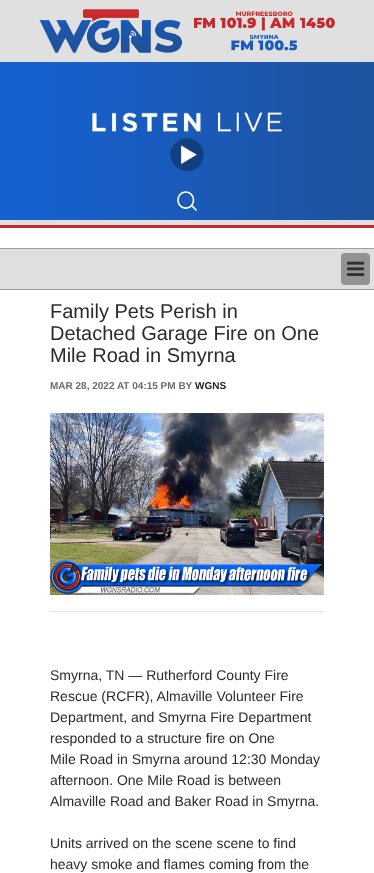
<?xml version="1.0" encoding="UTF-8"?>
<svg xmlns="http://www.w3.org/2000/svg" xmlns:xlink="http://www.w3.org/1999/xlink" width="374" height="873">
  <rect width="100%" height="100%" fill="#ffffff" />
  <image x="0" y="62" width="374" height="158" xlink:href="image1.png" />
  <rect y="220" width="374" height="5" fill="#e0e0e0" />
  <rect width="374" height="62" fill="#e0e0e0" />
  <image x="39" y="9" width="296" height="44" xlink:href="image2.png" />
  <image x="92" y="112" width="190" height="60" xlink:href="image3.png" />
  <image x="177" y="191" width="20" height="20" xlink:href="image4.png" />
  <rect y="225" width="374" height="3" fill="#c62a2e" />
  <rect y="249" width="374" height="40" fill="#dfdfdf" />
  <rect y="248" width="374" height="1" fill="#a0a0a0" />
  <rect y="289" width="374" height="1" fill="#a0a0a0" />
  <rect x="341" y="253" width="29" height="32" rx="4" fill="#939393" />
  <image x="347" y="261" width="18" height="15" xlink:href="image5.png" />
  <image x="50" y="413" width="274" height="182" xlink:href="image6.png" />
  <rect x="50" y="611" width="274" height="1" fill="#e6e6e6" />
  <text x="50" y="318" style="font-family: Liberation Sans; font-size: 20px; fill: #292b2c">Family Pets Perish in</text>
  <text x="50" y="340" style="font-family: Liberation Sans; font-size: 20px; fill: #292b2c">Detached Garage Fire on One</text>
  <text x="50" y="362" style="font-family: Liberation Sans; font-size: 20px; fill: #292b2c">Mile Road in Smyrna</text>
  <text x="50" y="389" style="font-family: Liberation Sans; font-size: 10px; font-weight: bold; fill: #636c72">MAR 28, 2022 AT 04:15 PM BY</text>
  <text x="195" y="389" style="font-family: Liberation Sans; font-size: 10px; font-weight: bold; fill: #1f1f1f">WGNS</text>
  <text x="50" y="680" style="font-family: Liberation Sans; font-size: 14px; fill: #292b2c">Smyrna, TN — Rutherford County Fire</text>
  <text x="50" y="701" style="font-family: Liberation Sans; font-size: 14px; fill: #292b2c">Rescue (RCFR), Almaville Volunteer Fire</text>
  <text x="50" y="722" style="font-family: Liberation Sans; font-size: 14px; fill: #292b2c">Department, and Smyrna Fire Department</text>
  <text x="50" y="743" style="font-family: Liberation Sans; font-size: 14px; fill: #292b2c">responded to a structure fire on One</text>
  <text x="50" y="764" style="font-family: Liberation Sans; font-size: 14px; fill: #292b2c">Mile Road in Smyrna around 12:30 Monday</text>
  <text x="50" y="785" style="font-family: Liberation Sans; font-size: 14px; fill: #292b2c">afternoon. One Mile Road is between</text>
  <text x="50" y="806" style="font-family: Liberation Sans; font-size: 14px; fill: #292b2c">Almaville Road and Baker Road in Smyrna.</text>
  <text x="50" y="848" style="font-family: Liberation Sans; font-size: 14px; fill: #292b2c">Units arrived on the scene scene to find</text>
  <text x="50" y="869" style="font-family: Liberation Sans; font-size: 14px; fill: #292b2c">heavy smoke and flames coming from the</text>
</svg>
